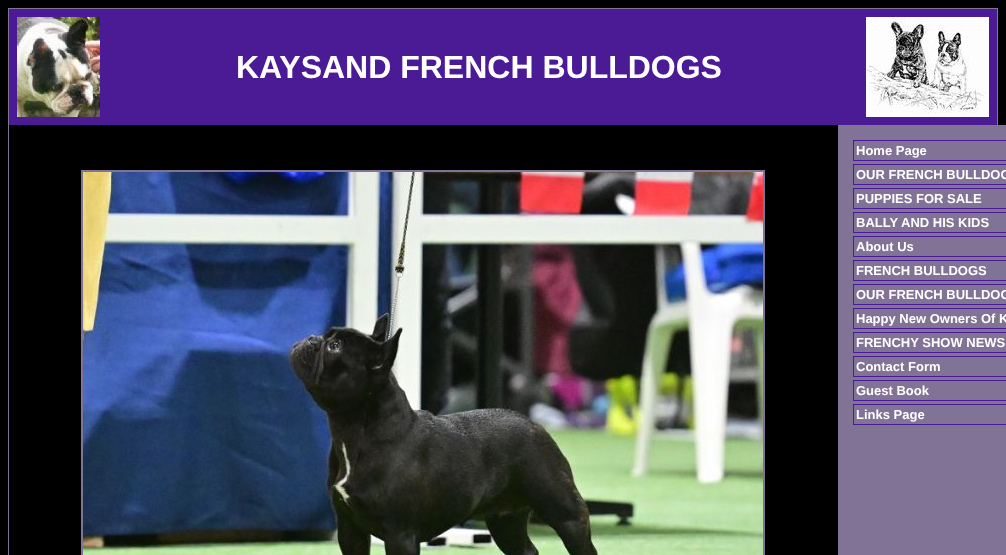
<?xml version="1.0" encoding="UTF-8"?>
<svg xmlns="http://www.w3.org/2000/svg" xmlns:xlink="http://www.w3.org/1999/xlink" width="1006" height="555">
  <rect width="100%" height="100%" fill="#000000" />
  <rect x="8.5" y="8.5" width="989" height="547" fill="none" stroke="#807395" />
  <rect x="9" y="9" width="988" height="116" fill="#4b1a95" />
  <image x="17" y="17" width="83" height="100" xlink:href="image1.png" />
  <image x="866" y="17" width="123" height="100" xlink:href="image2.png" />
  <rect x="81" y="170" width="684" height="385" fill="#807395" />
  <image x="83" y="172" width="680" height="383" xlink:href="image3.png" />
  <rect x="838" y="125" width="168" height="430" fill="#807395" />
  <rect x="853.5" y="140.5" width="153" height="20" fill="none" stroke="#4b1a95" />
  <rect x="853.5" y="164.5" width="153" height="20" fill="none" stroke="#4b1a95" />
  <rect x="853.5" y="188.5" width="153" height="20" fill="none" stroke="#4b1a95" />
  <rect x="853.5" y="212.5" width="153" height="20" fill="none" stroke="#4b1a95" />
  <rect x="853.5" y="236.5" width="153" height="20" fill="none" stroke="#4b1a95" />
  <rect x="853.5" y="260.5" width="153" height="20" fill="none" stroke="#4b1a95" />
  <rect x="853.5" y="284.5" width="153" height="20" fill="none" stroke="#4b1a95" />
  <rect x="853.5" y="308.5" width="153" height="20" fill="none" stroke="#4b1a95" />
  <rect x="853.5" y="332.5" width="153" height="20" fill="none" stroke="#4b1a95" />
  <rect x="853.5" y="356.5" width="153" height="20" fill="none" stroke="#4b1a95" />
  <rect x="853.5" y="380.5" width="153" height="20" fill="none" stroke="#4b1a95" />
  <rect x="853.5" y="404.5" width="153" height="20" fill="none" stroke="#4b1a95" />
  <text x="236" y="78" style="font-family: Liberation Sans; font-size: 32px; font-weight: bold; fill: #ffffff">KAYSAND FRENCH BULLDOGS</text>
  <text x="856" y="155" style="font-family: Liberation Sans; font-size: 13px; font-weight: bold; fill: #ffffff">Home Page</text>
  <text x="856" y="179" style="font-family: Liberation Sans; font-size: 13px; font-weight: bold; fill: #ffffff">OUR FRENCH BULLDOG</text>
  <text x="856" y="203" style="font-family: Liberation Sans; font-size: 13px; font-weight: bold; fill: #ffffff">PUPPIES FOR SALE</text>
  <text x="856" y="227" style="font-family: Liberation Sans; font-size: 13px; font-weight: bold; fill: #ffffff">BALLY AND HIS KIDS</text>
  <text x="856" y="251" style="font-family: Liberation Sans; font-size: 13px; font-weight: bold; fill: #ffffff">About Us</text>
  <text x="856" y="275" style="font-family: Liberation Sans; font-size: 13px; font-weight: bold; fill: #ffffff">FRENCH BULLDOGS</text>
  <text x="856" y="299" style="font-family: Liberation Sans; font-size: 13px; font-weight: bold; fill: #ffffff">OUR FRENCH BULLDOG</text>
  <text x="856" y="323" style="font-family: Liberation Sans; font-size: 13px; font-weight: bold; fill: #ffffff">Happy New Owners Of K</text>
  <text x="856" y="347" style="font-family: Liberation Sans; font-size: 13px; font-weight: bold; fill: #ffffff">FRENCHY SHOW NEWS</text>
  <text x="856" y="371" style="font-family: Liberation Sans; font-size: 13px; font-weight: bold; fill: #ffffff">Contact Form</text>
  <text x="856" y="395" style="font-family: Liberation Sans; font-size: 13px; font-weight: bold; fill: #ffffff">Guest Book</text>
  <text x="856" y="419" style="font-family: Liberation Sans; font-size: 13px; font-weight: bold; fill: #ffffff">Links Page</text>
</svg>
